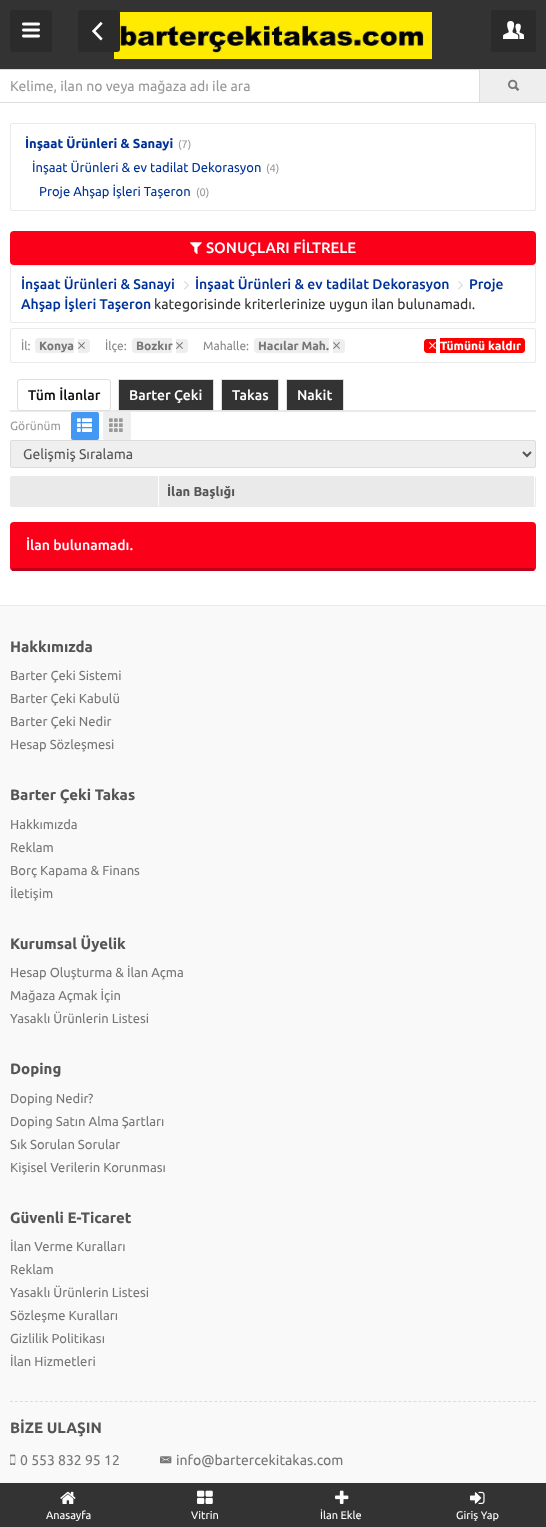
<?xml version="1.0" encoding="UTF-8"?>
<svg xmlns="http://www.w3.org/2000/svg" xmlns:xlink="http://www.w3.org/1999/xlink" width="546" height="1527">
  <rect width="100%" height="100%" fill="#ffffff" />
  <rect width="546" height="69" fill="#333333" />
  <rect x="10" y="10" width="42" height="42" rx="3" fill="#2b2b2b" />
  <image x="22" y="22" width="18" height="16" xlink:href="image1.png" />
  <image x="114" y="12" width="318" height="47" xlink:href="image3.png" />
  <rect x="78" y="10" width="42" height="42" rx="3" fill="#2b2b2b" />
  <image x="92" y="22" width="11" height="19" xlink:href="image2.png" />
  <rect x="491" y="10" width="45" height="42" rx="3" fill="#2b2b2b" />
  <image x="503" y="21" width="21" height="18" xlink:href="image4.png" />
  <rect y="69" width="480" height="1" fill="#dddddd" />
  <rect x="479" y="69" width="1" height="34" fill="#dddddd" />
  <rect y="102" width="546" height="1" fill="#dddddd" />
  <rect x="480" y="69" width="66" height="33" fill="#eeeeee" />
  <image x="508" y="79" width="12" height="12" xlink:href="image5.png" />
  <rect x="10.5" y="123.5" width="525" height="87" rx="1.5" fill="none" stroke="#eaeaea" />
  <rect x="10" y="231" width="526" height="34" rx="4" fill="#fa0019" />
  <image x="190" y="242" width="12" height="12" xlink:href="image6.png" />
  <rect x="10.5" y="265.5" width="525" height="57" rx="1.5" fill="none" stroke="#eaeaea" />
  <image x="184" y="281" width="5" height="9" xlink:href="image7.png" />
  <image x="458" y="281" width="5" height="9" xlink:href="image7.png" />
  <rect x="10.5" y="328.5" width="525" height="34" rx="1.5" fill="none" stroke="#eaeaea" />
  <path d="M 38 338 h 36 v 15 h -36 c -1.5 0 -3 -1.5 -3 -3 v -9 c 0 -1.5 1.5 -3 3 -3 z" fill="#eeeeee" />
  <path d="M 78 339 h 9 c 1.5 0 3 1.5 3 3 v 8 c 0 1.5 -1.5 3 -3 3 h -9 z" fill="#eeeeee" />
  <image x="78" y="342" width="7" height="7" xlink:href="image8.png" />
  <path d="M 135 338 h 37 v 15 h -37 c -1.5 0 -3 -1.5 -3 -3 v -9 c 0 -1.5 1.5 -3 3 -3 z" fill="#eeeeee" />
  <path d="M 176 339 h 9 c 1.5 0 3 1.5 3 3 v 8 c 0 1.5 -1.5 3 -3 3 h -9 z" fill="#eeeeee" />
  <image x="176" y="342" width="7" height="7" xlink:href="image8.png" />
  <path d="M 257 338 h 72 v 15 h -72 c -1.5 0 -3 -1.5 -3 -3 v -9 c 0 -1.5 1.5 -3 3 -3 z" fill="#eeeeee" />
  <path d="M 333 339 h 9 c 1.5 0 3 1.5 3 3 v 8 c 0 1.5 -1.5 3 -3 3 h -9 z" fill="#eeeeee" />
  <image x="333" y="342" width="7" height="7" xlink:href="image8.png" />
  <path d="M 427 339 h 9 v 14 h -9 c -1.5 0 -3 -1.5 -3 -3 v -8 c 0 -1.5 1.5 -3 3 -3 z" fill="#ff0000" />
  <path d="M 440 338 h 82 c 1.5 0 3 1.5 3 3 v 9 c 0 1.5 -1.5 3 -3 3 h -82 z" fill="#ff0000" />
  <image x="429" y="342" width="7" height="7" xlink:href="image9.png" />
  <rect x="10" y="410" width="526" height="2" fill="#eaeaea" />
  <rect x="17.5" y="379.5" width="93" height="31" rx="2.5" fill="#ffffff" stroke="#dedede" />
  <rect x="118.5" y="379.5" width="95" height="31" fill="#333333" stroke="#dedede" />
  <rect x="221.5" y="379.5" width="57" height="31" fill="#333333" stroke="#dedede" />
  <rect x="286.5" y="379.5" width="57" height="31" fill="#333333" stroke="#dedede" />
  <rect x="71" y="412" width="28" height="28" rx="2" fill="#4398f4" />
  <image x="77" y="418" width="15" height="14" xlink:href="image10.png" />
  <rect x="103" y="412" width="28" height="28" rx="2" fill="#eeeeee" />
  <image x="109" y="418" width="14" height="14" xlink:href="image11.png" />
  <rect x="10.5" y="440.5" width="525" height="27" rx="1.5" fill="#efefef" stroke="#dddddd" />
  <path d="M 523 452 l 4 4 l 4 -4" fill="none" stroke="#555555" stroke-width="2" />
  <rect x="10.5" y="476.5" width="525" height="30" rx="1.5" fill="none" stroke="#eaeaea" />
  <rect x="11" y="477" width="523" height="29" fill="#eaeaea" />
  <rect x="158" y="476" width="1" height="30" fill="#ffffff" />
  <rect x="534" y="476" width="1" height="30" fill="#ffffff" />
  <rect x="10" y="522" width="526" height="49" rx="4" fill="#fa0019" />
  <rect x="12" y="568" width="522" height="3" fill="#bf001d" />
  <rect y="606" width="546" height="877" fill="#f9f9f9" />
  <rect y="605" width="546" height="1" fill="#eaeaea" />
  <path d="M 10 1401.5 h 526" fill="none" stroke="#dddddd" stroke-dasharray="3 1.98" />
  <image x="10" y="1454" width="6" height="11" xlink:href="image12.png" />
  <image x="160" y="1456" width="12" height="8" xlink:href="image13.png" />
  <rect y="1483" width="546" height="44" fill="#333333" />
  <image x="60" y="1491" width="16" height="13" xlink:href="image14.png" />
  <image x="197" y="1490" width="16" height="14" xlink:href="image15.png" />
  <image x="335" y="1490" width="14" height="14" xlink:href="image16.png" />
  <image x="470" y="1491" width="15" height="13" xlink:href="image17.png" />
  <text x="10" y="91" style="font-family: Ubuntu; font-size: 14px; fill: #999999">Kelime, ilan no veya mağaza adı ile ara</text>
  <text x="25" y="148" style="font-family: Ubuntu; font-size: 13px; font-weight: bold; fill: #003399">İnşaat Ürünleri &amp; Sanayi</text>
  <text x="178" y="148" style="font-family: Ubuntu; font-size: 11px; fill: #999999">(7)</text>
  <text x="32" y="172" style="font-family: Ubuntu; font-size: 13px; fill: #003399">İnşaat Ürünleri &amp; ev tadilat Dekorasyon</text>
  <text x="266" y="172" style="font-family: Ubuntu; font-size: 11px; fill: #999999">(4)</text>
  <text x="39" y="196" style="font-family: Ubuntu; font-size: 13px; fill: #003399">Proje Ahşap İşleri Taşeron</text>
  <text x="196" y="196" style="font-family: Ubuntu; font-size: 11px; fill: #999999">(0)</text>
  <text x="206" y="253" style="font-family: Ubuntu; font-size: 15px; font-weight: 500; fill: #ffffff">SONUÇLARI FİLTRELE</text>
  <text x="21" y="289" style="font-family: Ubuntu; font-size: 14px; font-weight: 500; fill: #003399">İnşaat Ürünleri &amp; Sanayi</text>
  <text x="195" y="289" style="font-family: Ubuntu; font-size: 14px; font-weight: 500; fill: #003399">İnşaat Ürünleri &amp; ev tadilat Dekorasyon</text>
  <text x="469" y="289" style="font-family: Ubuntu; font-size: 14px; font-weight: 500; fill: #003399">Proje</text>
  <text x="21" y="309" style="font-family: Ubuntu; font-size: 14px; font-weight: 500; fill: #003399">Ahşap İşleri Taşeron</text>
  <text x="154" y="309" style="font-family: Ubuntu; font-size: 14px; fill: #333333">kategorisinde kriterlerinize uygun ilan bulunamadı.</text>
  <text x="21" y="350" style="font-family: Ubuntu; font-size: 12px; fill: #888888">İl:</text>
  <text x="39" y="350" style="font-family: Ubuntu; font-size: 12px; font-weight: bold; fill: #777777">Konya</text>
  <text x="105" y="350" style="font-family: Ubuntu; font-size: 12px; fill: #888888">İlçe:</text>
  <text x="136" y="350" style="font-family: Ubuntu; font-size: 12px; font-weight: bold; fill: #777777">Bozkır</text>
  <text x="203" y="350" style="font-family: Ubuntu; font-size: 12px; fill: #888888">Mahalle:</text>
  <text x="258" y="350" style="font-family: Ubuntu; font-size: 12px; font-weight: bold; fill: #777777">Hacılar Mah.</text>
  <text x="440" y="350" style="font-family: Ubuntu; font-size: 12px; font-weight: bold; fill: #ffffff">Tümünü kaldır</text>
  <text x="28" y="400" style="font-family: Ubuntu; font-size: 14px; font-weight: 500; fill: #111111">Tüm İlanlar</text>
  <text x="129" y="400" style="font-family: Ubuntu; font-size: 14px; font-weight: 500; fill: #ffffff">Barter Çeki</text>
  <text x="232" y="400" style="font-family: Ubuntu; font-size: 14px; font-weight: 500; fill: #ffffff">Takas</text>
  <text x="297" y="400" style="font-family: Ubuntu; font-size: 14px; font-weight: 500; fill: #ffffff">Nakit</text>
  <text x="10" y="430" style="font-family: Ubuntu; font-size: 12px; fill: #999999">Görünüm</text>
  <text x="23" y="459" style="font-family: Ubuntu; font-size: 14px; fill: #555555">Gelişmiş Sıralama</text>
  <text x="167" y="496" style="font-family: Ubuntu; font-size: 13px; font-weight: bold; fill: #555555">İlan Başlığı</text>
  <text x="26" y="550" style="font-family: Ubuntu; font-size: 14px; font-weight: 500; fill: #ffffff">İlan bulunamadı.</text>
  <text x="10" y="652" style="font-family: Ubuntu; font-size: 15px; font-weight: bold; fill: #555555">Hakkımızda</text>
  <text x="10" y="680" style="font-family: Ubuntu; font-size: 13px; fill: #777777">Barter Çeki Sistemi</text>
  <text x="10" y="703" style="font-family: Ubuntu; font-size: 13px; fill: #777777">Barter Çeki Kabulü</text>
  <text x="10" y="726" style="font-family: Ubuntu; font-size: 13px; fill: #777777">Barter Çeki Nedir</text>
  <text x="10" y="749" style="font-family: Ubuntu; font-size: 13px; fill: #777777">Hesap Sözleşmesi</text>
  <text x="10" y="800" style="font-family: Ubuntu; font-size: 15px; font-weight: bold; fill: #555555">Barter Çeki Takas</text>
  <text x="10" y="829" style="font-family: Ubuntu; font-size: 13px; fill: #777777">Hakkımızda</text>
  <text x="10" y="852" style="font-family: Ubuntu; font-size: 13px; fill: #777777">Reklam</text>
  <text x="10" y="875" style="font-family: Ubuntu; font-size: 13px; fill: #777777">Borç Kapama &amp; Finans</text>
  <text x="10" y="898" style="font-family: Ubuntu; font-size: 13px; fill: #777777">İletişim</text>
  <text x="10" y="949" style="font-family: Ubuntu; font-size: 15px; font-weight: bold; fill: #555555">Kurumsal Üyelik</text>
  <text x="10" y="977" style="font-family: Ubuntu; font-size: 13px; fill: #777777">Hesap Oluşturma &amp; İlan Açma</text>
  <text x="10" y="1000" style="font-family: Ubuntu; font-size: 13px; fill: #777777">Mağaza Açmak İçin</text>
  <text x="10" y="1023" style="font-family: Ubuntu; font-size: 13px; fill: #777777">Yasaklı Ürünlerin Listesi</text>
  <text x="10" y="1074" style="font-family: Ubuntu; font-size: 15px; font-weight: bold; fill: #555555">Doping</text>
  <text x="10" y="1103" style="font-family: Ubuntu; font-size: 13px; fill: #777777">Doping Nedir?</text>
  <text x="10" y="1126" style="font-family: Ubuntu; font-size: 13px; fill: #777777">Doping Satın Alma Şartları</text>
  <text x="10" y="1149" style="font-family: Ubuntu; font-size: 13px; fill: #777777">Sık Sorulan Sorular</text>
  <text x="10" y="1172" style="font-family: Ubuntu; font-size: 13px; fill: #777777">Kişisel Verilerin Korunması</text>
  <text x="10" y="1223" style="font-family: Ubuntu; font-size: 15px; font-weight: bold; fill: #555555">Güvenli E-Ticaret</text>
  <text x="10" y="1251" style="font-family: Ubuntu; font-size: 13px; fill: #777777">İlan Verme Kuralları</text>
  <text x="10" y="1274" style="font-family: Ubuntu; font-size: 13px; fill: #777777">Reklam</text>
  <text x="10" y="1297" style="font-family: Ubuntu; font-size: 13px; fill: #777777">Yasaklı Ürünlerin Listesi</text>
  <text x="10" y="1320" style="font-family: Ubuntu; font-size: 13px; fill: #777777">Sözleşme Kuralları</text>
  <text x="10" y="1343" style="font-family: Ubuntu; font-size: 13px; fill: #777777">Gizlilik Politikası</text>
  <text x="10" y="1366" style="font-family: Ubuntu; font-size: 13px; fill: #777777">İlan Hizmetleri</text>
  <text x="10" y="1433" style="font-family: Ubuntu; font-size: 15px; font-weight: bold; fill: #555555">BİZE ULAŞIN</text>
  <text x="20" y="1465" style="font-family: Ubuntu; font-size: 14px; fill: #777777">0 553 832 95 12</text>
  <text x="176" y="1465" style="font-family: Ubuntu; font-size: 14px; fill: #777777">info@bartercekitakas.com</text>
  <text x="46" y="1519" style="font-family: Ubuntu; font-size: 11px; fill: #ffffff">Anasayfa</text>
  <text x="191" y="1519" style="font-family: Ubuntu; font-size: 11px; fill: #ffffff">Vitrin</text>
  <text x="320" y="1519" style="font-family: Ubuntu; font-size: 11px; fill: #ffffff">İlan Ekle</text>
  <text x="456" y="1519" style="font-family: Ubuntu; font-size: 11px; fill: #ffffff">Giriş Yap</text>
</svg>
